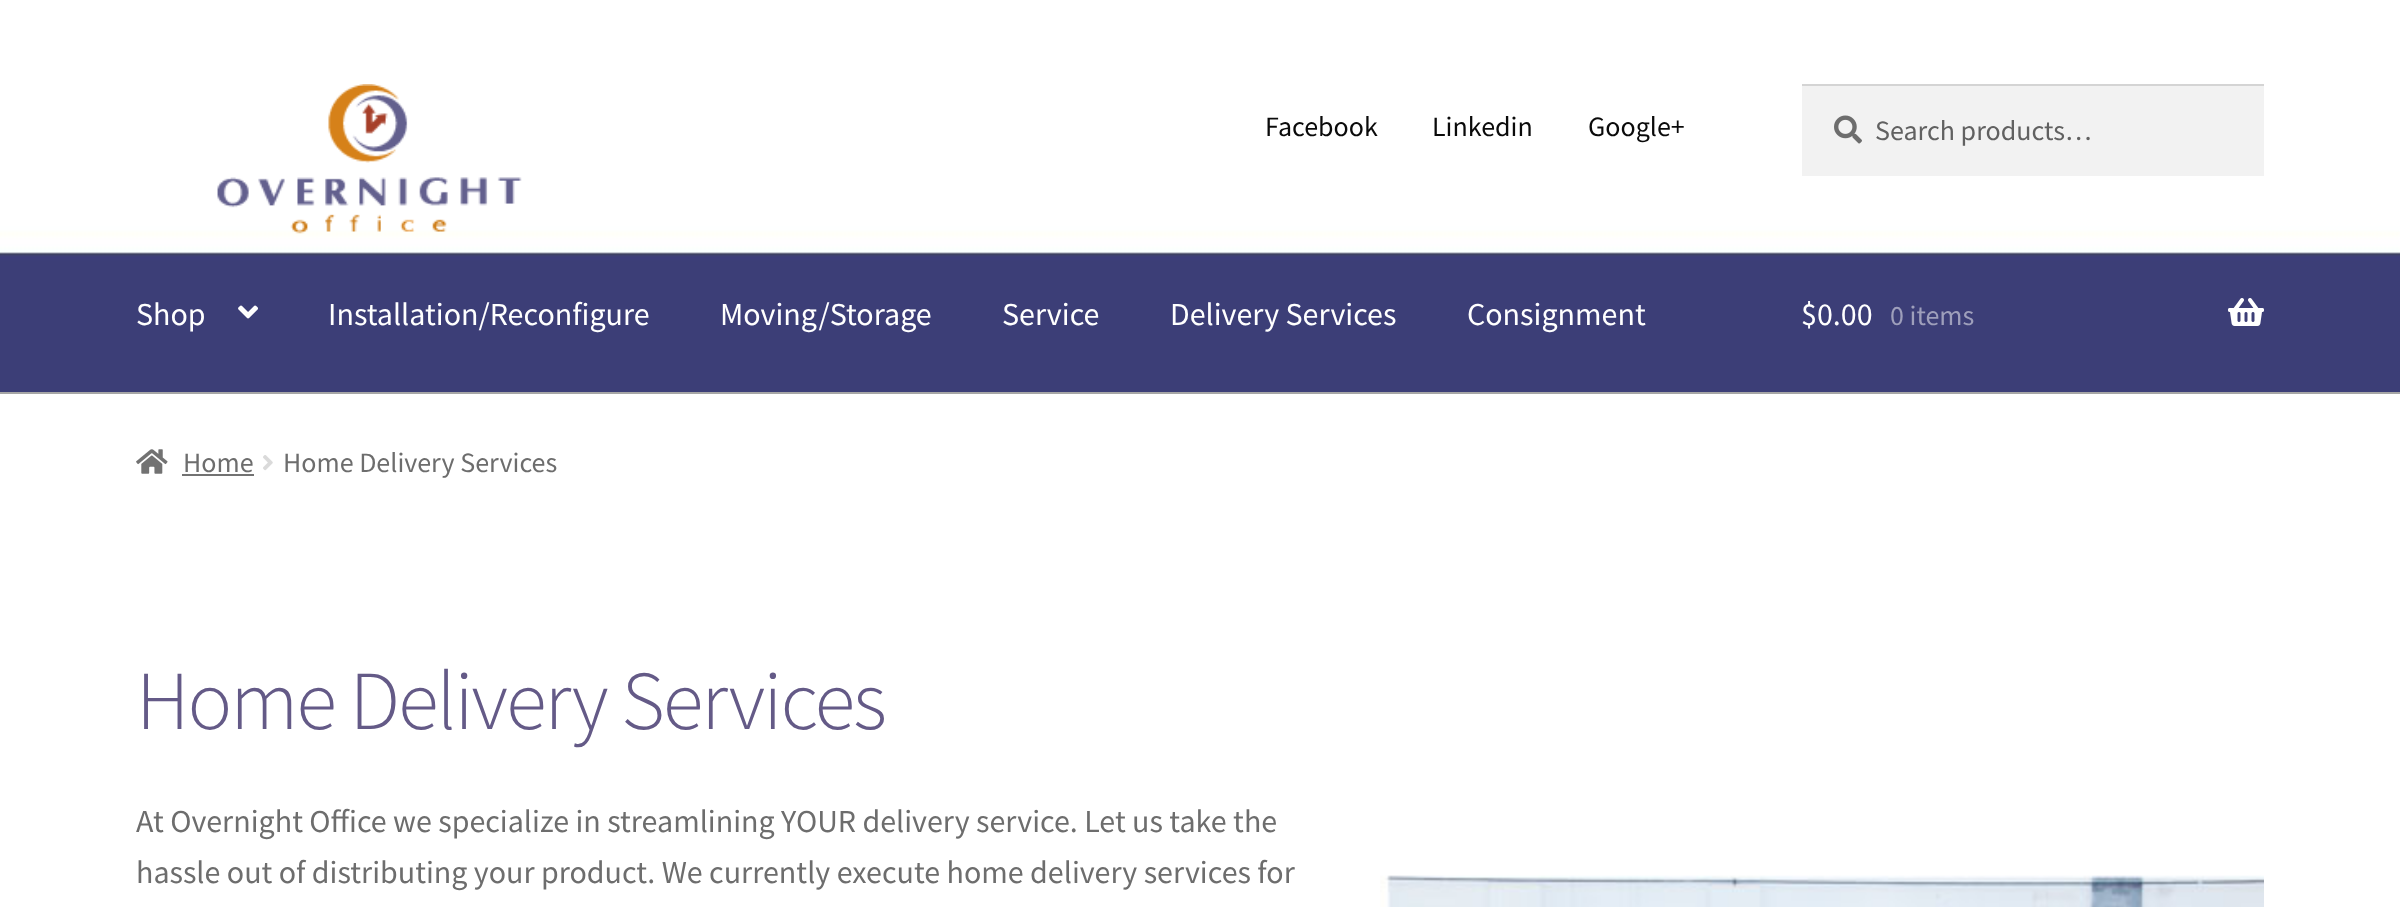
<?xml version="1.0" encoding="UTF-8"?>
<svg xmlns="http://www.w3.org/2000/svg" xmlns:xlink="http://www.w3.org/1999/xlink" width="2400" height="907">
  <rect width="100%" height="100%" fill="#ffffff" />
  <image x="0" y="0" width="2400" height="392" xlink:href="image1.png" />
  <rect y="392" width="2400" height="2" fill="#a6a6a6" />
  <image x="217" y="84" width="305" height="150" xlink:href="image2.png" />
  <rect x="1802" y="86" width="462" height="90" fill="#f2f2f2" />
  <image x="1834" y="115" width="28" height="29" xlink:href="image3.png" />
  <rect x="1802" y="84" width="462" height="2" fill="#d4d4d4" />
  <image x="238" y="305" width="20" height="14" xlink:href="image4.png" />
  <image x="2228" y="298" width="36" height="28" xlink:href="image5.png" />
  <image x="136" y="449" width="32" height="25" xlink:href="image6.png" />
  <rect x="182" y="474" width="72" height="2" fill="#727272" />
  <image x="263" y="455" width="10" height="16" xlink:href="image7.png" />
  <image x="1380" y="875" width="884" height="32" xlink:href="image8.png" />
  <text x="1265" y="136" style="font-family: Source Sans Pro; font-size: 28px; fill: #0a0a0a">Facebook</text>
  <text x="1432" y="136" style="font-family: Source Sans Pro; font-size: 28px; fill: #0a0a0a">Linkedin</text>
  <text x="1588" y="136" style="font-family: Source Sans Pro; font-size: 28px; fill: #0a0a0a">Google+</text>
  <text x="1875" y="140" style="font-family: Source Sans Pro; font-size: 28px; fill: #616161">Search products…</text>
  <text x="136" y="325" style="font-family: Source Sans Pro; font-size: 32px; fill: #ffffff">Shop</text>
  <text x="328" y="325" style="font-family: Source Sans Pro; font-size: 32px; fill: #ffffff">Installation/Reconfigure</text>
  <text x="720" y="325" style="font-family: Source Sans Pro; font-size: 32px; fill: #ffffff">Moving/Storage</text>
  <text x="1002" y="325" style="font-family: Source Sans Pro; font-size: 32px; fill: #ffffff">Service</text>
  <text x="1170" y="325" style="font-family: Source Sans Pro; font-size: 32px; fill: #ffffff">Delivery Services</text>
  <text x="1467" y="325" style="font-family: Source Sans Pro; font-size: 32px; fill: #ffffff">Consignment</text>
  <text x="1801" y="325" style="font-family: Source Sans Pro; font-size: 32px; fill: #ffffff">$0.00</text>
  <text x="1890" y="325" style="font-family: Source Sans Pro; font-size: 28px; fill: #9e9fbb">0 items</text>
  <text x="183" y="472" style="font-family: Source Sans Pro; font-size: 28px; fill: #6d6d6d">Home</text>
  <text x="283" y="472" style="font-family: Source Sans Pro; font-size: 28px; fill: #6d6d6d">Home Delivery Services</text>
  <text x="136" y="729" style="font-family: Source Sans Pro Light; font-size: 83.75px; font-weight: 300; letter-spacing: -2px; fill: #645a87">Home Delivery Services</text>
  <text x="136" y="832" style="font-family: Source Sans Pro; font-size: 32px; fill: #6d6d6d">At Overnight Office we specialize in streamlining YOUR delivery service. Let us take the</text>
  <text x="136" y="883" style="font-family: Source Sans Pro; font-size: 32px; fill: #6d6d6d">hassle out of distributing your product. We currently execute home delivery services for</text>
</svg>
